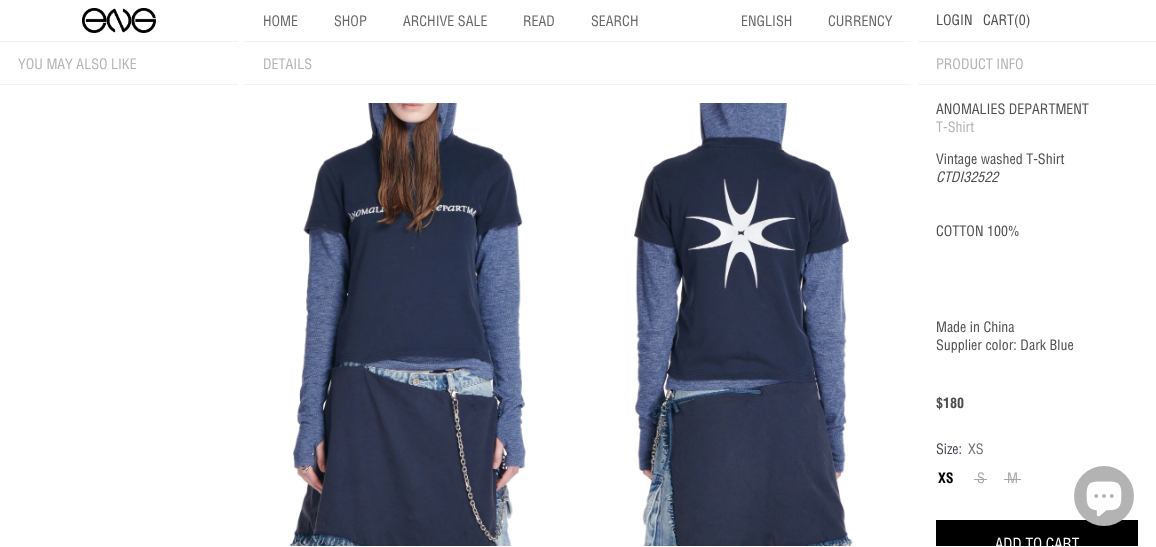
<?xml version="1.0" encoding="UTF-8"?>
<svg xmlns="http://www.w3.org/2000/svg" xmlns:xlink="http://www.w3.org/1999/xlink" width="1156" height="547">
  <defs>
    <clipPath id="clip1"><rect x="918" y="85" width="238" height="461" /></clipPath>
  </defs>
  <rect width="100%" height="100%" fill="#ffffff" />
  <rect y="41" width="238" height="1" fill="#f2f2f2" />
  <image x="82" y="8" width="74" height="25" xlink:href="image1.png" />
  <rect x="245" y="41" width="666" height="1" fill="#f2f2f2" />
  <rect x="918" y="41" width="238" height="1" fill="#f2f2f2" />
  <rect y="84" width="238" height="1" fill="#f2f2f2" />
  <rect x="245" y="84" width="666" height="1" fill="#f2f2f2" />
  <image x="289" y="103" width="237" height="443" xlink:href="image2.png" />
  <image x="634" y="103" width="219" height="443" xlink:href="image3.png" />
  <rect x="918" y="84" width="238" height="1" fill="#f2f2f2" />
  <rect x="974" y="479" width="13" height="1" fill="#a6a6a6" />
  <rect x="1004" y="479" width="17" height="1" fill="#a6a6a6" />
  <rect x="936" y="520" width="202" height="26" fill="#000000" />
  <circle cx="1104" cy="496" r="30" fill="#b3b3b3" />
  <image x="1086" y="481" width="36" height="36" xlink:href="image4.png" />
  <text x="263" y="26" style="font-family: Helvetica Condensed; font-size: 14px; fill: #666666">HOME</text>
  <text x="334" y="26" style="font-family: Helvetica Condensed; font-size: 14px; fill: #666666">SHOP</text>
  <text x="403" y="26" style="font-family: Helvetica Condensed; font-size: 14px; fill: #666666">ARCHIVE SALE</text>
  <text x="523" y="26" style="font-family: Helvetica Condensed; font-size: 14px; fill: #666666">READ</text>
  <text x="591" y="26" style="font-family: Helvetica Condensed; font-size: 14px; fill: #666666">SEARCH</text>
  <text x="741" y="26" style="font-family: Helvetica Condensed; font-size: 14px; fill: #666666">ENGLISH</text>
  <text x="828" y="26" style="font-family: Helvetica Condensed; font-size: 14px; fill: #666666">CURRENCY</text>
  <text x="936" y="25" style="font-family: Helvetica Condensed; font-size: 14px; fill: #4d4d4d">LOGIN</text>
  <text x="983" y="25" style="font-family: Helvetica Condensed; font-size: 14px; fill: #4d4d4d">CART(0)</text>
  <text x="18" y="69" style="font-family: Helvetica Condensed; font-size: 14px; fill: #b3b3b3">YOU MAY ALSO LIKE</text>
  <text x="263" y="69" style="font-family: Helvetica Condensed; font-size: 14px; fill: #b3b3b3">DETAILS</text>
  <text x="936" y="69" style="font-family: Helvetica Condensed; font-size: 14px; fill: #b3b3b3">PRODUCT INFO</text>
  <text x="936" y="114" style="font-family: Helvetica Condensed; font-size: 14px; fill: #4d4d4d">ANOMALIES DEPARTMENT</text>
  <text x="936" y="132" style="font-family: Helvetica Condensed; font-size: 14px; fill: #b3b3b3">T-Shirt</text>
  <text x="936" y="164" style="font-family: Helvetica Condensed; font-size: 14px; fill: #4d4d4d">Vintage washed T-Shirt</text>
  <text x="936" y="182" style="font-family: Helvetica Condensed; font-size: 14px; font-style: italic; fill: #4d4d4d">CTDI32522</text>
  <text x="936" y="236" style="font-family: Helvetica Condensed; font-size: 14px; fill: #4d4d4d">COTTON 100%</text>
  <text x="936" y="332" style="font-family: Helvetica Condensed; font-size: 14px; fill: #4d4d4d">Made in China</text>
  <text x="936" y="350" style="font-family: Helvetica Condensed; font-size: 14px; fill: #4d4d4d">Supplier color: Dark Blue</text>
  <text x="936" y="408" style="font-family: Helvetica Condensed; font-size: 14px; font-weight: bold; fill: #4d4d4d">$180</text>
  <text x="936" y="454" style="font-family: Helvetica Condensed; font-size: 14px; fill: #424552">Size:</text>
  <text x="968" y="454" style="font-family: Helvetica Condensed; font-size: 14px; fill: #677279">XS</text>
  <text x="938" y="483" style="font-family: Helvetica Condensed; font-size: 14px; font-weight: bold; fill: #000000">XS</text>
  <text x="977" y="483" style="font-family: Helvetica Condensed; font-size: 14px; fill: #a6a6a6">S</text>
  <text x="1007" y="483" style="font-family: Helvetica Condensed; font-size: 14px; fill: #a6a6a6">M</text>
  <g clip-path="url(#clip1)">
    <text x="995" y="549" style="font-family: Helvetica Condensed; font-size: 15px; fill: #ffffff">ADD TO CART</text>
  </g>
</svg>
